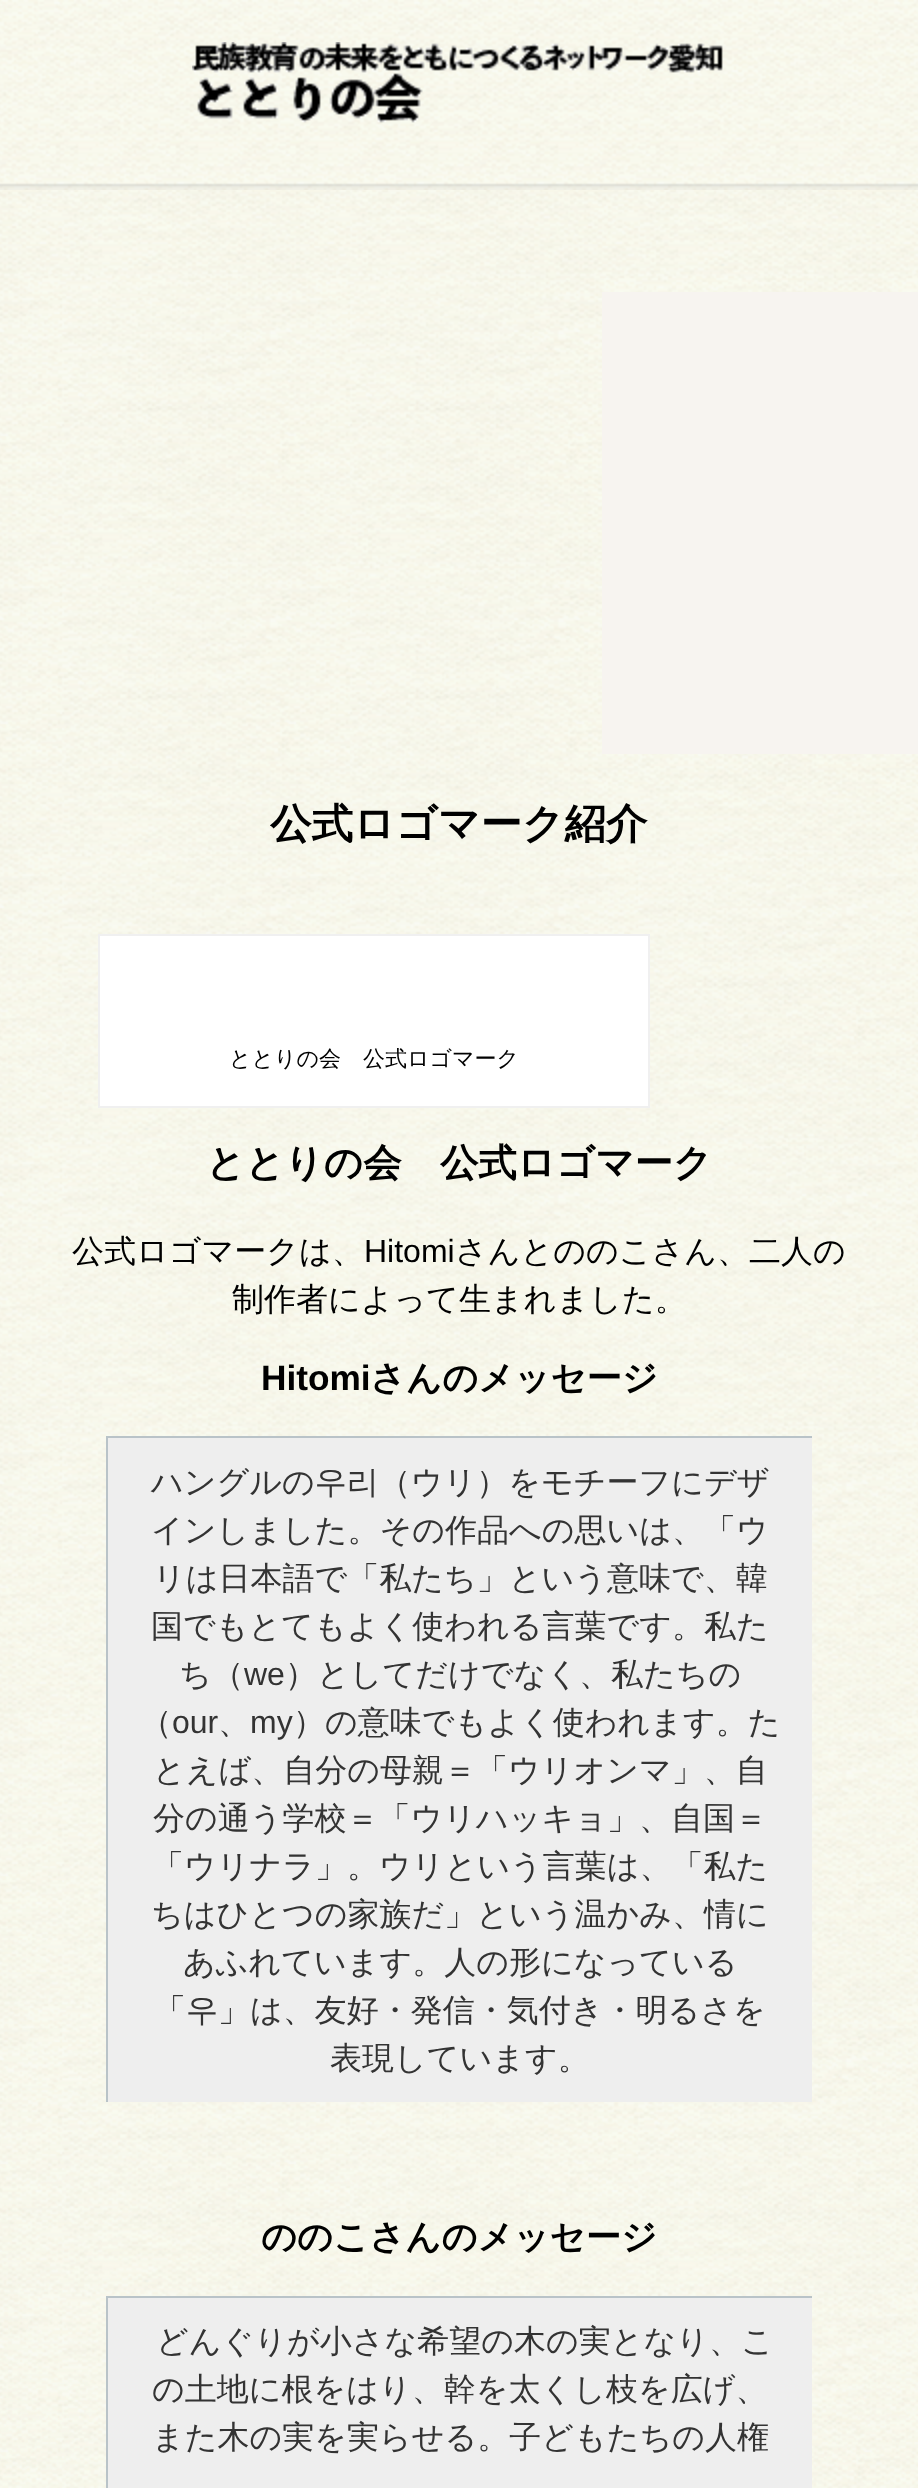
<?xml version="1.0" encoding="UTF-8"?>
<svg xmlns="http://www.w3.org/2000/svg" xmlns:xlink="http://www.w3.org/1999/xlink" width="918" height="2488">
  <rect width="100%" height="100%" fill="#ffffff" />
  <image x="0" y="190" width="918" height="2298" xlink:href="image1.png" />
  <image x="0" y="0" width="918" height="190" xlink:href="image2.png" />
  <image x="192" y="42" width="531" height="81" xlink:href="image3.png" />
  <rect x="602" y="292" width="316" height="462" fill="#f7f4f0" />
  <rect x="99" y="935" width="550" height="172" fill="#ffffff" stroke="#f0f0f0" stroke-width="2" />
  <rect x="108" y="1438" width="704" height="664" fill="#eeeeee" />
  <rect x="106" y="1436" width="706" height="2" fill="#b9c3c8" />
  <rect x="106" y="1436" width="2" height="666" fill="#b9c3c8" />
  <rect x="108" y="2298" width="704" height="190" fill="#eeeeee" />
  <rect x="106" y="2296" width="706" height="2" fill="#b9c3c8" />
  <rect x="106" y="2296" width="2" height="192" fill="#b9c3c8" />
  <text x="270" y="838" style="font-family: WenQuanYi Zen Hei; font-size: 41.5px; font-weight: bold; fill: #000000">公式ロゴマーク紹介</text>
  <text x="229" y="1066" style="font-family: WenQuanYi Zen Hei; font-size: 22px; font-weight: 500; fill: #000000">ととりの会　公式ロゴマーク</text>
  <text x="206" y="1176" style="font-family: WenQuanYi Zen Hei; font-size: 38.4px; font-weight: bold; fill: #000000">ととりの会　公式ロゴマーク</text>
  <text x="72" y="1262" style="font-family: WenQuanYi Zen Hei; font-size: 32px; font-weight: 500; fill: #000000">公式ロゴマークは、</text>
  <text x="364" y="1262" style="font-family: Liberation Sans; font-size: 32px; fill: #000000">Hitomi</text>
  <text x="455" y="1262" style="font-family: WenQuanYi Zen Hei; font-size: 32px; font-weight: 500; fill: #000000">さんとののこさん、二人の</text>
  <text x="232" y="1310" style="font-family: WenQuanYi Zen Hei; font-size: 32px; font-weight: 500; fill: #000000">制作者によって生まれました。</text>
  <text x="261" y="1390" style="font-family: Liberation Sans; font-size: 35.25px; font-weight: bold; fill: #000000">Hitomi</text>
  <text x="370" y="1390" style="font-family: WenQuanYi Zen Hei; font-size: 35.25px; font-weight: bold; fill: #000000">さんのメッセージ</text>
  <text x="151" y="1493" style="font-family: WenQuanYi Zen Hei; font-size: 32px; font-weight: 500; fill: #333333">ハングルの우리（ウリ）をモチーフにデザ</text>
  <text x="151" y="1541" style="font-family: WenQuanYi Zen Hei; font-size: 32px; font-weight: 500; fill: #333333">インしました。その作品への思いは、「ウ</text>
  <text x="153" y="1589" style="font-family: WenQuanYi Zen Hei; font-size: 32px; font-weight: 500; fill: #333333">リは日本語で「私たち」という意味で、韓</text>
  <text x="151" y="1637" style="font-family: WenQuanYi Zen Hei; font-size: 32px; font-weight: 500; fill: #333333">国でもとてもよく使われる言葉です。私た</text>
  <text x="179" y="1685" style="font-family: WenQuanYi Zen Hei; font-size: 32px; font-weight: 500; fill: #333333">ち（</text>
  <text x="244" y="1685" style="font-family: Liberation Sans; font-size: 32px; fill: #333333">we</text>
  <text x="285" y="1685" style="font-family: WenQuanYi Zen Hei; font-size: 32px; font-weight: 500; fill: #333333">）としてだけでなく、私たちの</text>
  <text x="140" y="1733" style="font-family: WenQuanYi Zen Hei; font-size: 32px; font-weight: 500; fill: #333333">（</text>
  <text x="172" y="1733" style="font-family: Liberation Sans; font-size: 32px; fill: #333333">our</text>
  <text x="218" y="1733" style="font-family: WenQuanYi Zen Hei; font-size: 32px; font-weight: 500; fill: #333333">、</text>
  <text x="250" y="1733" style="font-family: Liberation Sans; font-size: 32px; fill: #333333">my</text>
  <text x="293" y="1733" style="font-family: WenQuanYi Zen Hei; font-size: 32px; font-weight: 500; fill: #333333">）の意味でもよく使われます。た</text>
  <text x="153" y="1781" style="font-family: WenQuanYi Zen Hei; font-size: 32px; font-weight: 500; fill: #333333">とえば、自分の母親＝「ウリオンマ」、自</text>
  <text x="153" y="1829" style="font-family: WenQuanYi Zen Hei; font-size: 32px; font-weight: 500; fill: #333333">分の通う学校＝「ウリハッキョ」、自国＝</text>
  <text x="152" y="1877" style="font-family: WenQuanYi Zen Hei; font-size: 32px; font-weight: 500; fill: #333333">「ウリナラ」。ウリという言葉は、「私た</text>
  <text x="151" y="1925" style="font-family: WenQuanYi Zen Hei; font-size: 32px; font-weight: 500; fill: #333333">ちはひとつの家族だ」という温かみ、情に</text>
  <text x="183" y="1973" style="font-family: WenQuanYi Zen Hei; font-size: 32px; font-weight: 500; fill: #333333">あふれています。人の形になっている</text>
  <text x="154" y="2021" style="font-family: WenQuanYi Zen Hei; font-size: 32px; font-weight: 500; fill: #333333">「우」は、友好・発信・気付き・明るさを</text>
  <text x="330" y="2069" style="font-family: WenQuanYi Zen Hei; font-size: 32px; font-weight: 500; fill: #333333">表現しています。</text>
  <text x="261" y="2249" style="font-family: WenQuanYi Zen Hei; font-size: 35.25px; font-weight: bold; fill: #000000">ののこさんのメッセージ</text>
  <text x="156" y="2352" style="font-family: WenQuanYi Zen Hei; font-size: 32px; font-weight: 500; fill: #333333">どんぐりが小さな希望の木の実となり、こ</text>
  <text x="152" y="2400" style="font-family: WenQuanYi Zen Hei; font-size: 32px; font-weight: 500; fill: #333333">の土地に根をはり、幹を太くし枝を広げ、</text>
  <text x="152" y="2448" style="font-family: WenQuanYi Zen Hei; font-size: 32px; font-weight: 500; fill: #333333">また木の実を実らせる。子どもたちの人権</text>
</svg>
